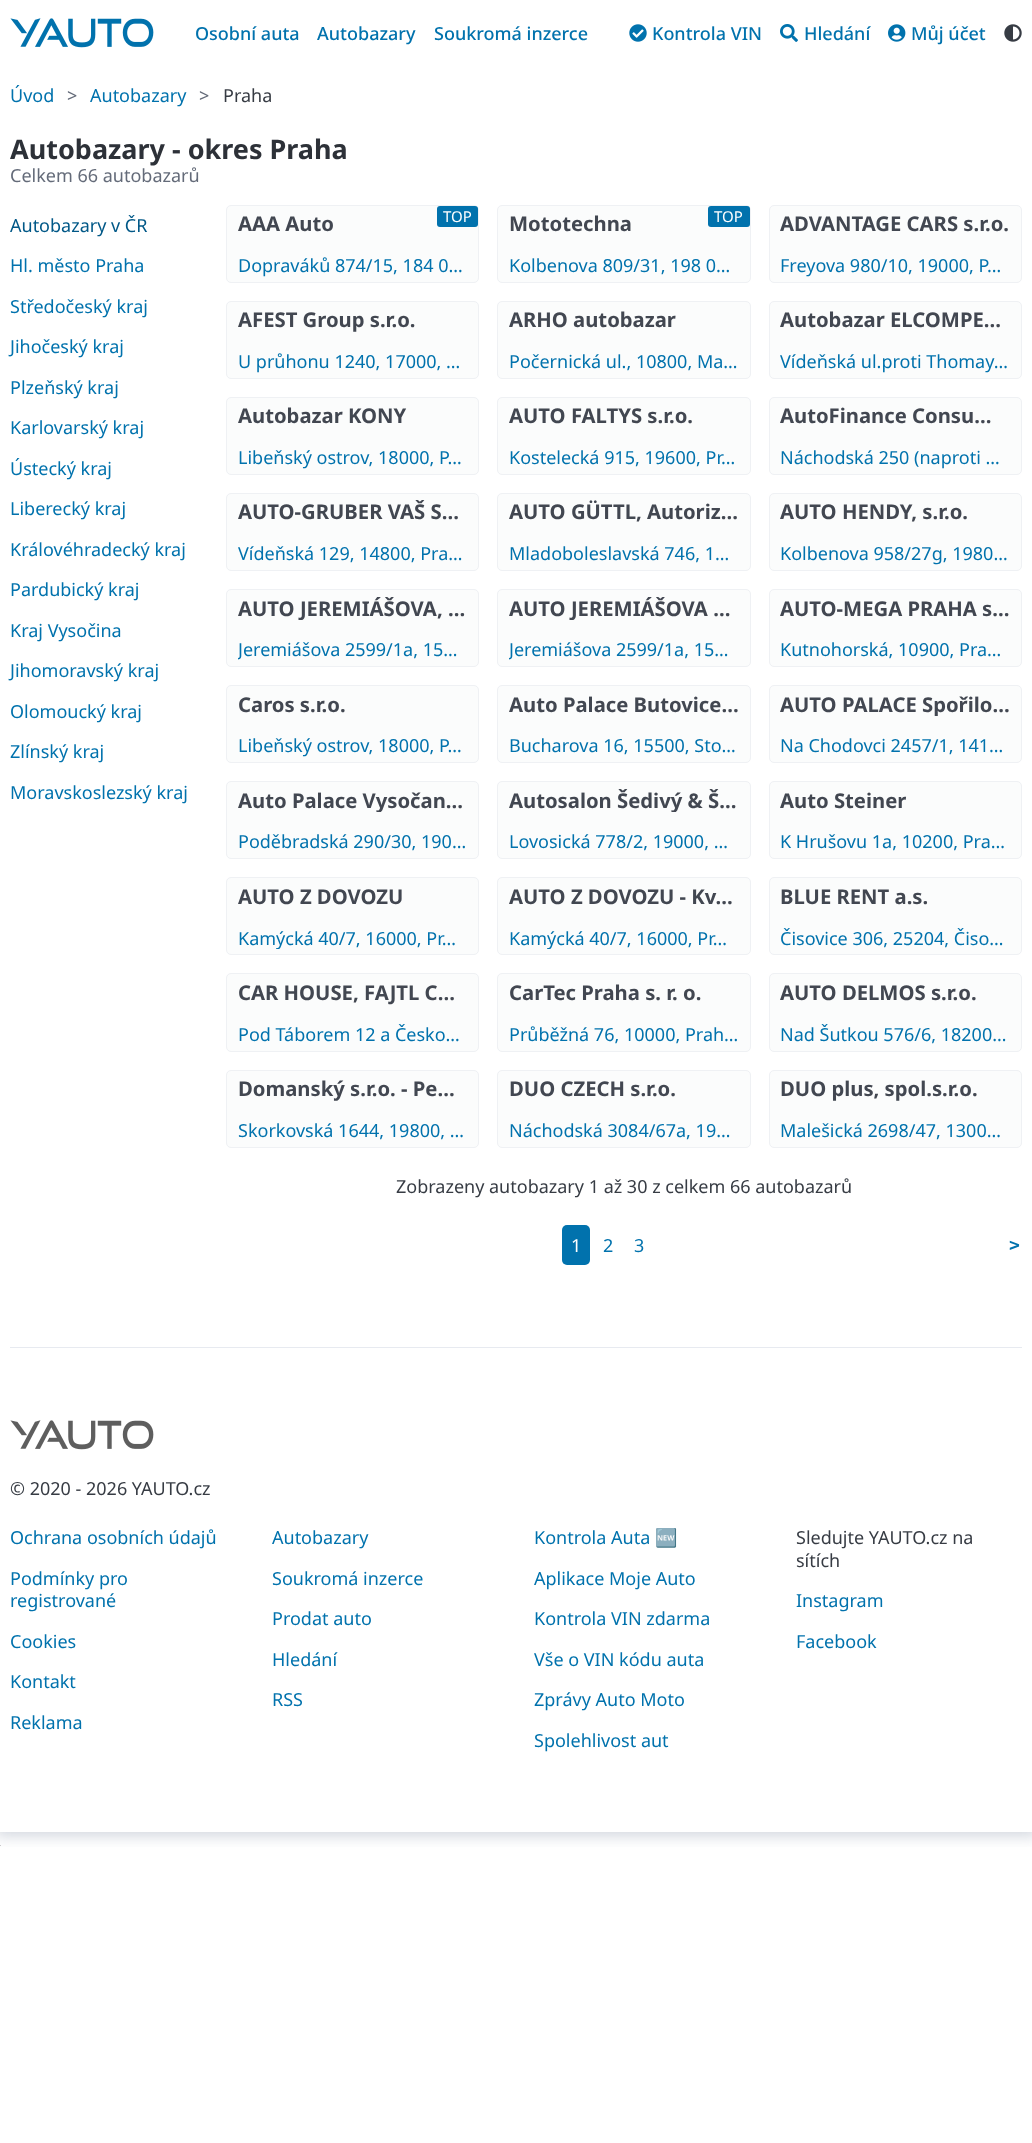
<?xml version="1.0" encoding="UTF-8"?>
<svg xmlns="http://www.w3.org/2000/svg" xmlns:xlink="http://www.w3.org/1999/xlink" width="1032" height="2143">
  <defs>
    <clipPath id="clip1"><rect x="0" y="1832" width="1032" height="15" /></clipPath>
    <clipPath id="clip2"><rect x="238" y="596" width="230" height="24" /></clipPath>
    <clipPath id="clip3"><rect x="238" y="638" width="230" height="23" /></clipPath>
    <clipPath id="clip4"><rect x="509" y="596" width="230" height="24" /></clipPath>
    <clipPath id="clip5"><rect x="509" y="638" width="230" height="23" /></clipPath>
    <clipPath id="clip6"><rect x="780" y="692" width="230" height="24" /></clipPath>
    <clipPath id="clip7"><rect x="238" y="788" width="230" height="24" /></clipPath>
    <clipPath id="clip8"><rect x="509" y="788" width="230" height="24" /></clipPath>
    <clipPath id="clip9"><rect x="238" y="927" width="230" height="22" /></clipPath>
    <clipPath id="clip10"><rect x="509" y="927" width="230" height="22" /></clipPath>
  </defs>
  <rect width="100%" height="100%" fill="#ffffff" />
  <rect y="1845" width="1" height="1" fill="#cdcdcd" />
  <g clip-path="url(#clip1)">
    <rect x="-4" y="-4" width="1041" height="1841" fill="#5d6b89" fill-opacity="0.25" filter="blur(7px)" />
  </g>
  <image x="10" y="18" width="144" height="30" xlink:href="image1.png" />
  <image x="629" y="24" width="18" height="18" xlink:href="image2.png" />
  <image x="780" y="24" width="18" height="18" xlink:href="image3.png" />
  <image x="888" y="24" width="18" height="18" xlink:href="image4.png" />
  <image x="1004" y="24" width="18" height="18" xlink:href="image5.png" />
  <rect x="226.5" y="205.5" width="252" height="77" rx="4.5" fill="#fbfcfc" stroke="#eff1f4" />
  <rect x="437" y="206" width="41" height="21" rx="3" fill="#0172ad" />
  <rect x="497.5" y="205.5" width="253" height="77" rx="4.5" fill="#fbfcfc" stroke="#eff1f4" />
  <rect x="708" y="206" width="42" height="21" rx="3" fill="#0172ad" />
  <rect x="769.5" y="205.5" width="252" height="77" rx="4.5" fill="#fbfcfc" stroke="#eff1f4" />
  <rect x="226.5" y="301.5" width="252" height="77" rx="4.5" fill="#fbfcfc" stroke="#eff1f4" />
  <rect x="497.5" y="301.5" width="253" height="77" rx="4.5" fill="#fbfcfc" stroke="#eff1f4" />
  <rect x="769.5" y="301.5" width="252" height="77" rx="4.5" fill="#fbfcfc" stroke="#eff1f4" />
  <rect x="226.5" y="397.5" width="252" height="77" rx="4.5" fill="#fbfcfc" stroke="#eff1f4" />
  <rect x="497.5" y="397.5" width="253" height="77" rx="4.5" fill="#fbfcfc" stroke="#eff1f4" />
  <rect x="769.5" y="397.5" width="252" height="77" rx="4.5" fill="#fbfcfc" stroke="#eff1f4" />
  <rect x="226.5" y="493.5" width="252" height="77" rx="4.5" fill="#fbfcfc" stroke="#eff1f4" />
  <rect x="497.5" y="493.5" width="253" height="77" rx="4.5" fill="#fbfcfc" stroke="#eff1f4" />
  <rect x="769.5" y="493.5" width="252" height="77" rx="4.5" fill="#fbfcfc" stroke="#eff1f4" />
  <rect x="226.5" y="589.5" width="252" height="77" rx="4.5" fill="#fbfcfc" stroke="#eff1f4" />
  <rect x="497.5" y="589.5" width="253" height="77" rx="4.5" fill="#fbfcfc" stroke="#eff1f4" />
  <rect x="769.5" y="589.5" width="252" height="77" rx="4.5" fill="#fbfcfc" stroke="#eff1f4" />
  <rect x="226.5" y="685.5" width="252" height="77" rx="4.5" fill="#fbfcfc" stroke="#eff1f4" />
  <rect x="497.5" y="685.5" width="253" height="77" rx="4.5" fill="#fbfcfc" stroke="#eff1f4" />
  <rect x="769.5" y="685.5" width="252" height="77" rx="4.5" fill="#fbfcfc" stroke="#eff1f4" />
  <rect x="226.5" y="781.5" width="252" height="77" rx="4.5" fill="#fbfcfc" stroke="#eff1f4" />
  <rect x="497.5" y="781.5" width="253" height="77" rx="4.5" fill="#fbfcfc" stroke="#eff1f4" />
  <rect x="769.5" y="781.5" width="252" height="77" rx="4.5" fill="#fbfcfc" stroke="#eff1f4" />
  <rect x="226.5" y="877.5" width="252" height="77" rx="4.5" fill="#fbfcfc" stroke="#eff1f4" />
  <rect x="497.5" y="877.5" width="253" height="77" rx="4.5" fill="#fbfcfc" stroke="#eff1f4" />
  <rect x="769.5" y="877.5" width="252" height="77" rx="4.5" fill="#fbfcfc" stroke="#eff1f4" />
  <rect x="226.5" y="973.5" width="252" height="78" rx="4.5" fill="#fbfcfc" stroke="#eff1f4" />
  <rect x="497.5" y="973.5" width="253" height="78" rx="4.5" fill="#fbfcfc" stroke="#eff1f4" />
  <rect x="769.5" y="973.5" width="252" height="78" rx="4.5" fill="#fbfcfc" stroke="#eff1f4" />
  <rect x="226.5" y="1070.5" width="252" height="77" rx="4.5" fill="#fbfcfc" stroke="#eff1f4" />
  <rect x="497.5" y="1070.5" width="253" height="77" rx="4.5" fill="#fbfcfc" stroke="#eff1f4" />
  <rect x="769.5" y="1070.5" width="252" height="77" rx="4.5" fill="#fbfcfc" stroke="#eff1f4" />
  <rect x="562" y="1225" width="28" height="40" rx="5" fill="#0172ad" />
  <rect x="10" y="1347" width="1012" height="1" fill="#e7eaf0" />
  <image x="10" y="1420" width="144" height="30" xlink:href="image6.png" />
  <text x="195" y="40" style="font-family: Noto Sans; font-size: 18px; font-weight: 500; fill: #0172ad">Osobní auta</text>
  <text x="317" y="40" style="font-family: Noto Sans; font-size: 18px; font-weight: 500; fill: #0172ad">Autobazary</text>
  <text x="434" y="40" style="font-family: Noto Sans; font-size: 18px; font-weight: 500; fill: #0172ad">Soukromá inzerce</text>
  <text x="652" y="40" style="font-family: Noto Sans; font-size: 18px; font-weight: 500; fill: #0172ad">Kontrola VIN</text>
  <text x="804" y="40" style="font-family: Noto Sans; font-size: 18px; font-weight: 500; fill: #0172ad">Hledání</text>
  <text x="911" y="40" style="font-family: Noto Sans; font-size: 18px; font-weight: 500; fill: #0172ad">Můj účet</text>
  <text x="10" y="102" style="font-family: Noto Sans; font-size: 18px; fill: #0172ad">Úvod</text>
  <text x="67" y="102" style="font-family: Noto Sans; font-size: 18px; fill: #646b79">&gt;</text>
  <text x="90" y="102" style="font-family: Noto Sans; font-size: 18px; fill: #0172ad">Autobazary</text>
  <text x="199" y="102" style="font-family: Noto Sans; font-size: 18px; fill: #646b79">&gt;</text>
  <text x="223" y="102" style="font-family: Noto Sans; font-size: 18px; fill: #373c44">Praha</text>
  <text x="10" y="159" style="font-family: Noto Sans; font-size: 27px; font-weight: bold; fill: #2d3138">Autobazary - okres Praha</text>
  <text x="10" y="182" style="font-family: Noto Sans; font-size: 18px; fill: #646b79">Celkem 66 autobazarů</text>
  <text x="10" y="232" style="font-family: Noto Sans; font-size: 18px; fill: #015887">Autobazary v ČR</text>
  <text x="10" y="272" style="font-family: Noto Sans; font-size: 18px; fill: #0172ad">Hl. město Praha</text>
  <text x="10" y="313" style="font-family: Noto Sans; font-size: 18px; fill: #0172ad">Středočeský kraj</text>
  <text x="10" y="353" style="font-family: Noto Sans; font-size: 18px; fill: #0172ad">Jihočeský kraj</text>
  <text x="10" y="394" style="font-family: Noto Sans; font-size: 18px; fill: #0172ad">Plzeňský kraj</text>
  <text x="10" y="434" style="font-family: Noto Sans; font-size: 18px; fill: #0172ad">Karlovarský kraj</text>
  <text x="10" y="475" style="font-family: Noto Sans; font-size: 18px; fill: #0172ad">Ústecký kraj</text>
  <text x="10" y="515" style="font-family: Noto Sans; font-size: 18px; fill: #0172ad">Liberecký kraj</text>
  <text x="10" y="556" style="font-family: Noto Sans; font-size: 18px; fill: #0172ad">Královéhradecký kraj</text>
  <text x="10" y="596" style="font-family: Noto Sans; font-size: 18px; fill: #0172ad">Pardubický kraj</text>
  <text x="10" y="637" style="font-family: Noto Sans; font-size: 18px; fill: #0172ad">Kraj Vysočina</text>
  <text x="10" y="677" style="font-family: Noto Sans; font-size: 18px; fill: #0172ad">Jihomoravský kraj</text>
  <text x="10" y="718" style="font-family: Noto Sans; font-size: 18px; fill: #0172ad">Olomoucký kraj</text>
  <text x="10" y="758" style="font-family: Noto Sans; font-size: 18px; fill: #0172ad">Zlínský kraj</text>
  <text x="10" y="799" style="font-family: Noto Sans; font-size: 18px; fill: #0172ad">Moravskoslezský kraj</text>
  <text x="238" y="231" style="font-family: Noto Sans; font-size: 20.25px; font-weight: bold; fill: #424751">AAA Auto</text>
  <text x="443" y="222" style="font-family: Noto Sans; font-size: 15px; fill: #ffffff">TOP</text>
  <text x="238" y="272" style="font-family: Noto Sans; font-size: 18px; fill: #0172ad">Dopraváků 874/15, 184 0…</text>
  <text x="509" y="231" style="font-family: Noto Sans; font-size: 20.25px; font-weight: bold; fill: #424751">Mototechna</text>
  <text x="714" y="222" style="font-family: Noto Sans; font-size: 15px; fill: #ffffff">TOP</text>
  <text x="509" y="272" style="font-family: Noto Sans; font-size: 18px; fill: #0172ad">Kolbenova 809/31, 198 0…</text>
  <text x="780" y="231" style="font-family: Noto Sans; font-size: 20.25px; font-weight: bold; fill: #424751">ADVANTAGE CARS s.r.o.</text>
  <text x="780" y="272" style="font-family: Noto Sans; font-size: 18px; fill: #0172ad">Freyova 980/10, 19000, P…</text>
  <text x="238" y="327" style="font-family: Noto Sans; font-size: 20.25px; font-weight: bold; fill: #424751">AFEST Group s.r.o.</text>
  <text x="238" y="368" style="font-family: Noto Sans; font-size: 18px; fill: #0172ad">U průhonu 1240, 17000, …</text>
  <text x="509" y="327" style="font-family: Noto Sans; font-size: 20.25px; font-weight: bold; fill: #424751">ARHO autobazar</text>
  <text x="509" y="368" style="font-family: Noto Sans; font-size: 18px; fill: #0172ad">Počernická ul., 10800, Ma…</text>
  <text x="780" y="327" style="font-family: Noto Sans; font-size: 20.25px; font-weight: bold; fill: #424751">Autobazar ELCOMPE…</text>
  <text x="780" y="368" style="font-family: Noto Sans; font-size: 18px; fill: #0172ad">Vídeňská ul.proti Thomay…</text>
  <text x="238" y="423" style="font-family: Noto Sans; font-size: 20.25px; font-weight: bold; fill: #424751">Autobazar KONY</text>
  <text x="238" y="464" style="font-family: Noto Sans; font-size: 18px; fill: #0172ad">Libeňský ostrov, 18000, P…</text>
  <text x="509" y="423" style="font-family: Noto Sans; font-size: 20.25px; font-weight: bold; fill: #424751">AUTO FALTYS s.r.o.</text>
  <text x="509" y="464" style="font-family: Noto Sans; font-size: 18px; fill: #0172ad">Kostelecká 915, 19600, Pr…</text>
  <text x="780" y="423" style="font-family: Noto Sans; font-size: 20.25px; font-weight: bold; fill: #424751">AutoFinance Consu…</text>
  <text x="780" y="464" style="font-family: Noto Sans; font-size: 18px; fill: #0172ad">Náchodská 250 (naproti …</text>
  <text x="238" y="519" style="font-family: Noto Sans; font-size: 20.25px; font-weight: bold; fill: #424751">AUTO-GRUBER VAŠ S…</text>
  <text x="238" y="560" style="font-family: Noto Sans; font-size: 18px; fill: #0172ad">Vídeňská 129, 14800, Pra…</text>
  <text x="509" y="519" style="font-family: Noto Sans; font-size: 20.25px; font-weight: bold; fill: #424751">AUTO GÜTTL, Autoriz…</text>
  <text x="509" y="560" style="font-family: Noto Sans; font-size: 18px; fill: #0172ad">Mladoboleslavská 746, 1…</text>
  <text x="780" y="519" style="font-family: Noto Sans; font-size: 20.25px; font-weight: bold; fill: #424751">AUTO HENDY, s.r.o.</text>
  <text x="780" y="560" style="font-family: Noto Sans; font-size: 18px; fill: #0172ad">Kolbenova 958/27g, 1980…</text>
  <g clip-path="url(#clip2)">
    <text x="238" y="616" style="font-family: Noto Sans; font-size: 20.25px; font-weight: bold; fill: #424751">AUTO JEREMIÁŠOVA, …</text>
  </g>
  <g clip-path="url(#clip3)">
    <text x="238" y="656" style="font-family: Noto Sans; font-size: 18px; fill: #0172ad">Jeremiášova 2599/1a, 15…</text>
  </g>
  <g clip-path="url(#clip4)">
    <text x="509" y="616" style="font-family: Noto Sans; font-size: 20.25px; font-weight: bold; fill: #424751">AUTO JEREMIÁŠOVA …</text>
  </g>
  <g clip-path="url(#clip5)">
    <text x="509" y="656" style="font-family: Noto Sans; font-size: 18px; fill: #0172ad">Jeremiášova 2599/1a, 15…</text>
  </g>
  <text x="780" y="616" style="font-family: Noto Sans; font-size: 20.25px; font-weight: bold; fill: #424751">AUTO-MEGA PRAHA s…</text>
  <text x="780" y="656" style="font-family: Noto Sans; font-size: 18px; fill: #0172ad">Kutnohorská, 10900, Pra…</text>
  <text x="238" y="712" style="font-family: Noto Sans; font-size: 20.25px; font-weight: bold; fill: #424751">Caros s.r.o.</text>
  <text x="238" y="752" style="font-family: Noto Sans; font-size: 18px; fill: #0172ad">Libeňský ostrov, 18000, P…</text>
  <text x="509" y="712" style="font-family: Noto Sans; font-size: 20.25px; font-weight: bold; fill: #424751">Auto Palace Butovice…</text>
  <text x="509" y="752" style="font-family: Noto Sans; font-size: 18px; fill: #0172ad">Bucharova 16, 15500, Sto…</text>
  <g clip-path="url(#clip6)">
    <text x="780" y="712" style="font-family: Noto Sans; font-size: 20.25px; font-weight: bold; fill: #424751">AUTO PALACE Spořilo…</text>
  </g>
  <text x="780" y="752" style="font-family: Noto Sans; font-size: 18px; fill: #0172ad">Na Chodovci 2457/1, 141…</text>
  <g clip-path="url(#clip7)">
    <text x="238" y="808" style="font-family: Noto Sans; font-size: 20.25px; font-weight: bold; fill: #424751">Auto Palace Vysočan…</text>
  </g>
  <text x="238" y="848" style="font-family: Noto Sans; font-size: 18px; fill: #0172ad">Poděbradská 290/30, 190…</text>
  <g clip-path="url(#clip8)">
    <text x="509" y="808" style="font-family: Noto Sans; font-size: 20.25px; font-weight: bold; fill: #424751">Autosalon Šedivý &amp; Š…</text>
  </g>
  <text x="509" y="848" style="font-family: Noto Sans; font-size: 18px; fill: #0172ad">Lovosická 778/2, 19000, …</text>
  <text x="780" y="808" style="font-family: Noto Sans; font-size: 20.25px; font-weight: bold; fill: #424751">Auto Steiner</text>
  <text x="780" y="848" style="font-family: Noto Sans; font-size: 18px; fill: #0172ad">K Hrušovu 1a, 10200, Pra…</text>
  <text x="238" y="904" style="font-family: Noto Sans; font-size: 20.25px; font-weight: bold; fill: #424751">AUTO Z DOVOZU</text>
  <g clip-path="url(#clip9)">
    <text x="238" y="945" style="font-family: Noto Sans; font-size: 18px; fill: #0172ad">Kamýcká 40/7, 16000, Pr…</text>
  </g>
  <text x="509" y="904" style="font-family: Noto Sans; font-size: 20.25px; font-weight: bold; fill: #424751">AUTO Z DOVOZU - Kv…</text>
  <g clip-path="url(#clip10)">
    <text x="509" y="945" style="font-family: Noto Sans; font-size: 18px; fill: #0172ad">Kamýcká 40/7, 16000, Pr…</text>
  </g>
  <text x="780" y="904" style="font-family: Noto Sans; font-size: 20.25px; font-weight: bold; fill: #424751">BLUE RENT a.s.</text>
  <text x="780" y="945" style="font-family: Noto Sans; font-size: 18px; fill: #0172ad">Čisovice 306, 25204, Čiso…</text>
  <text x="238" y="1000" style="font-family: Noto Sans; font-size: 20.25px; font-weight: bold; fill: #424751">CAR HOUSE, FAJTL C…</text>
  <text x="238" y="1041" style="font-family: Noto Sans; font-size: 18px; fill: #0172ad">Pod Táborem 12 a Česko…</text>
  <text x="509" y="1000" style="font-family: Noto Sans; font-size: 20.25px; font-weight: bold; fill: #424751">CarTec Praha s. r. o.</text>
  <text x="509" y="1041" style="font-family: Noto Sans; font-size: 18px; fill: #0172ad">Průběžná 76, 10000, Prah…</text>
  <text x="780" y="1000" style="font-family: Noto Sans; font-size: 20.25px; font-weight: bold; fill: #424751">AUTO DELMOS s.r.o.</text>
  <text x="780" y="1041" style="font-family: Noto Sans; font-size: 18px; fill: #0172ad">Nad Šutkou 576/6, 18200…</text>
  <text x="238" y="1096" style="font-family: Noto Sans; font-size: 20.25px; font-weight: bold; fill: #424751">Domanský s.r.o. - Pe…</text>
  <text x="238" y="1137" style="font-family: Noto Sans; font-size: 18px; fill: #0172ad">Skorkovská 1644, 19800, …</text>
  <text x="509" y="1096" style="font-family: Noto Sans; font-size: 20.25px; font-weight: bold; fill: #424751">DUO CZECH s.r.o.</text>
  <text x="509" y="1137" style="font-family: Noto Sans; font-size: 18px; fill: #0172ad">Náchodská 3084/67a, 19…</text>
  <text x="780" y="1096" style="font-family: Noto Sans; font-size: 20.25px; font-weight: bold; fill: #424751">DUO plus, spol.s.r.o.</text>
  <text x="780" y="1137" style="font-family: Noto Sans; font-size: 18px; fill: #0172ad">Malešická 2698/47, 1300…</text>
  <text x="396" y="1193" style="font-family: Noto Sans; font-size: 18px; fill: #373c44">Zobrazeny autobazary 1 až 30 z celkem 66 autobazarů</text>
  <text x="571" y="1252" style="font-family: Noto Sans; font-size: 18px; fill: #ffffff">1</text>
  <text x="603" y="1252" style="font-family: Noto Sans; font-size: 18px; fill: #0172ad">2</text>
  <text x="634" y="1252" style="font-family: Noto Sans; font-size: 18px; fill: #0172ad">3</text>
  <text x="1009" y="1251" style="font-family: DejaVu Sans Mono; font-size: 18px; font-weight: bold; fill: #0172ad">&gt;</text>
  <text x="10" y="1495" style="font-family: Noto Sans; font-size: 18px; fill: #373c44">© 2020 - 2026 YAUTO.cz</text>
  <text x="10" y="1544" style="font-family: Noto Sans; font-size: 18px; fill: #0172ad">Ochrana osobních údajů</text>
  <text x="10" y="1585" style="font-family: Noto Sans; font-size: 18px; fill: #0172ad">Podmínky pro</text>
  <text x="10" y="1607" style="font-family: Noto Sans; font-size: 18px; fill: #0172ad">registrované</text>
  <text x="10" y="1648" style="font-family: Noto Sans; font-size: 18px; fill: #0172ad">Cookies</text>
  <text x="10" y="1688" style="font-family: Noto Sans; font-size: 18px; fill: #0172ad">Kontakt</text>
  <text x="10" y="1729" style="font-family: Noto Sans; font-size: 18px; fill: #0172ad">Reklama</text>
  <text x="272" y="1544" style="font-family: Noto Sans; font-size: 18px; fill: #0172ad">Autobazary</text>
  <text x="272" y="1585" style="font-family: Noto Sans; font-size: 18px; fill: #0172ad">Soukromá inzerce</text>
  <text x="272" y="1625" style="font-family: Noto Sans; font-size: 18px; fill: #0172ad">Prodat auto</text>
  <text x="272" y="1666" style="font-family: Noto Sans; font-size: 18px; fill: #0172ad">Hledání</text>
  <text x="272" y="1706" style="font-family: Noto Sans; font-size: 18px; fill: #0172ad">RSS</text>
  <text x="534" y="1544" style="font-family: Noto Sans; font-size: 18px; fill: #0172ad">Kontrola Auta</text>
  <text x="655" y="1544" style="font-family: Noto Color Emoji; font-size: 18px; fill: #0172ad">🆕</text>
  <text x="534" y="1585" style="font-family: Noto Sans; font-size: 18px; fill: #0172ad">Aplikace Moje Auto</text>
  <text x="534" y="1625" style="font-family: Noto Sans; font-size: 18px; fill: #0172ad">Kontrola VIN zdarma</text>
  <text x="534" y="1666" style="font-family: Noto Sans; font-size: 18px; fill: #0172ad">Vše o VIN kódu auta</text>
  <text x="534" y="1706" style="font-family: Noto Sans; font-size: 18px; fill: #0172ad">Zprávy Auto Moto</text>
  <text x="534" y="1747" style="font-family: Noto Sans; font-size: 18px; fill: #0172ad">Spolehlivost aut</text>
  <text x="796" y="1544" style="font-family: Noto Sans; font-size: 18px; fill: #373c44">Sledujte YAUTO.cz na</text>
  <text x="796" y="1567" style="font-family: Noto Sans; font-size: 18px; fill: #373c44">sítích</text>
  <text x="796" y="1607" style="font-family: Noto Sans; font-size: 18px; fill: #0172ad">Instagram</text>
  <text x="796" y="1648" style="font-family: Noto Sans; font-size: 18px; fill: #0172ad">Facebook</text>
</svg>
